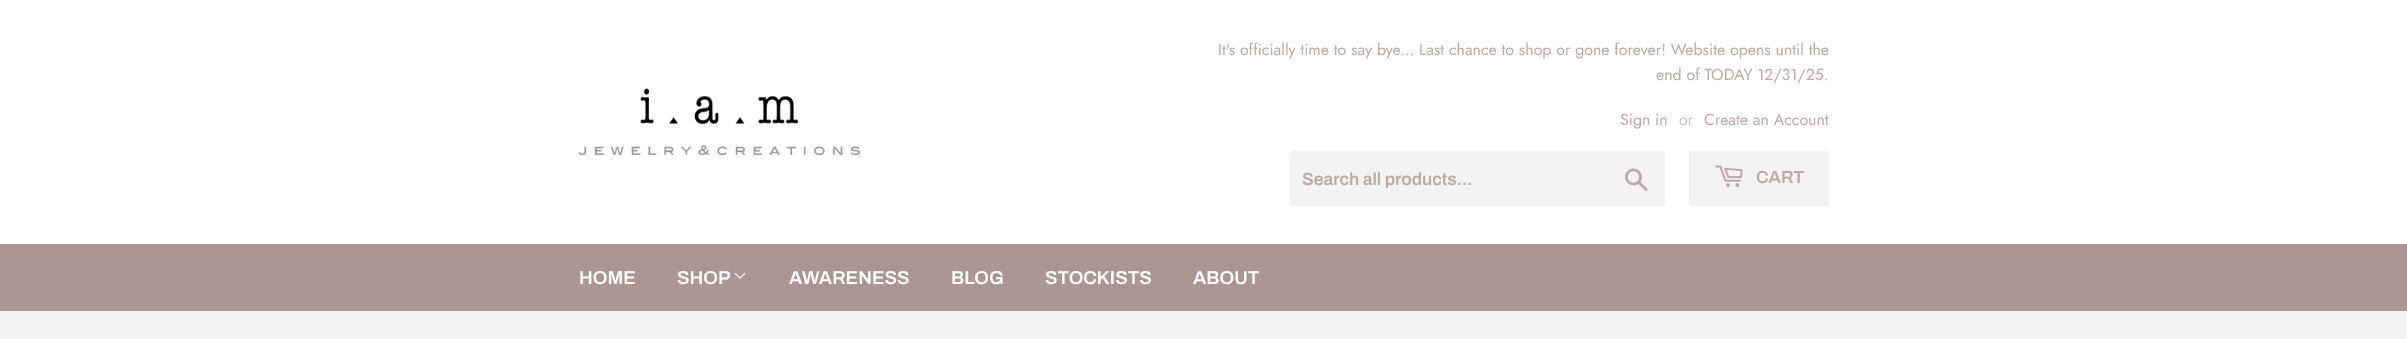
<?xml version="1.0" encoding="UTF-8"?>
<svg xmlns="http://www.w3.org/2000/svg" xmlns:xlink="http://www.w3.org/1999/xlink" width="2407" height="339">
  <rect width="100%" height="100%" fill="#f3f3f3" />
  <rect width="2407" height="244" fill="#ffffff" />
  <image x="578" y="88" width="282" height="67" xlink:href="image1.png" />
  <rect x="1290" y="151" width="375" height="55" rx="2.5" fill="#f3f3f3" />
  <image x="1625" y="168" width="23" height="23" xlink:href="image2.png" />
  <rect x="1689" y="151" width="140" height="55" rx="2.5" fill="#f3f3f3" />
  <image x="1715" y="165" width="28" height="22" xlink:href="image3.png" />
  <rect y="244" width="2407" height="67" fill="#ac9692" />
  <image x="734" y="272" width="12" height="7" xlink:href="image4.png" />
  <text x="1218" y="55" style="font-family: Jost; font-size: 15.95px; fill: #bea9a6">It's officially time to say bye... Last chance to shop or gone forever! Website opens until the</text>
  <text x="1656" y="80" style="font-family: Jost; font-size: 15.95px; fill: #bea9a6">end of TODAY 12/31/25.</text>
  <text x="1620" y="125" style="font-family: Jost; font-size: 15.95px; fill: #bea9a6">Sign in</text>
  <text x="1679" y="125" style="font-family: Jost; font-size: 15.95px; font-weight: 300; fill: #bea9a6">or</text>
  <text x="1704" y="125" style="font-family: Jost; font-size: 15.95px; fill: #bea9a6">Create an Account</text>
  <text x="1302" y="185" style="font-family: Archivo; font-size: 17.5px; font-weight: 600; fill: #bea9a6">Search all products...</text>
  <text x="1756" y="183" style="font-family: Archivo; font-size: 17.5px; font-weight: 600; fill: #bea9a6">CART</text>
  <text x="579" y="284" style="font-family: Archivo; font-size: 18.75px; font-weight: 600; fill: #ffffff">HOME</text>
  <text x="677" y="284" style="font-family: Archivo; font-size: 18.75px; font-weight: 600; fill: #ffffff">SHOP</text>
  <text x="789" y="284" style="font-family: Archivo; font-size: 18.75px; font-weight: 600; fill: #ffffff">AWARENESS</text>
  <text x="951" y="284" style="font-family: Archivo; font-size: 18.75px; font-weight: 600; fill: #ffffff">BLOG</text>
  <text x="1045" y="284" style="font-family: Archivo; font-size: 18.75px; font-weight: 600; fill: #ffffff">STOCKISTS</text>
  <text x="1193" y="284" style="font-family: Archivo; font-size: 18.75px; font-weight: 600; fill: #ffffff">ABOUT</text>
</svg>
